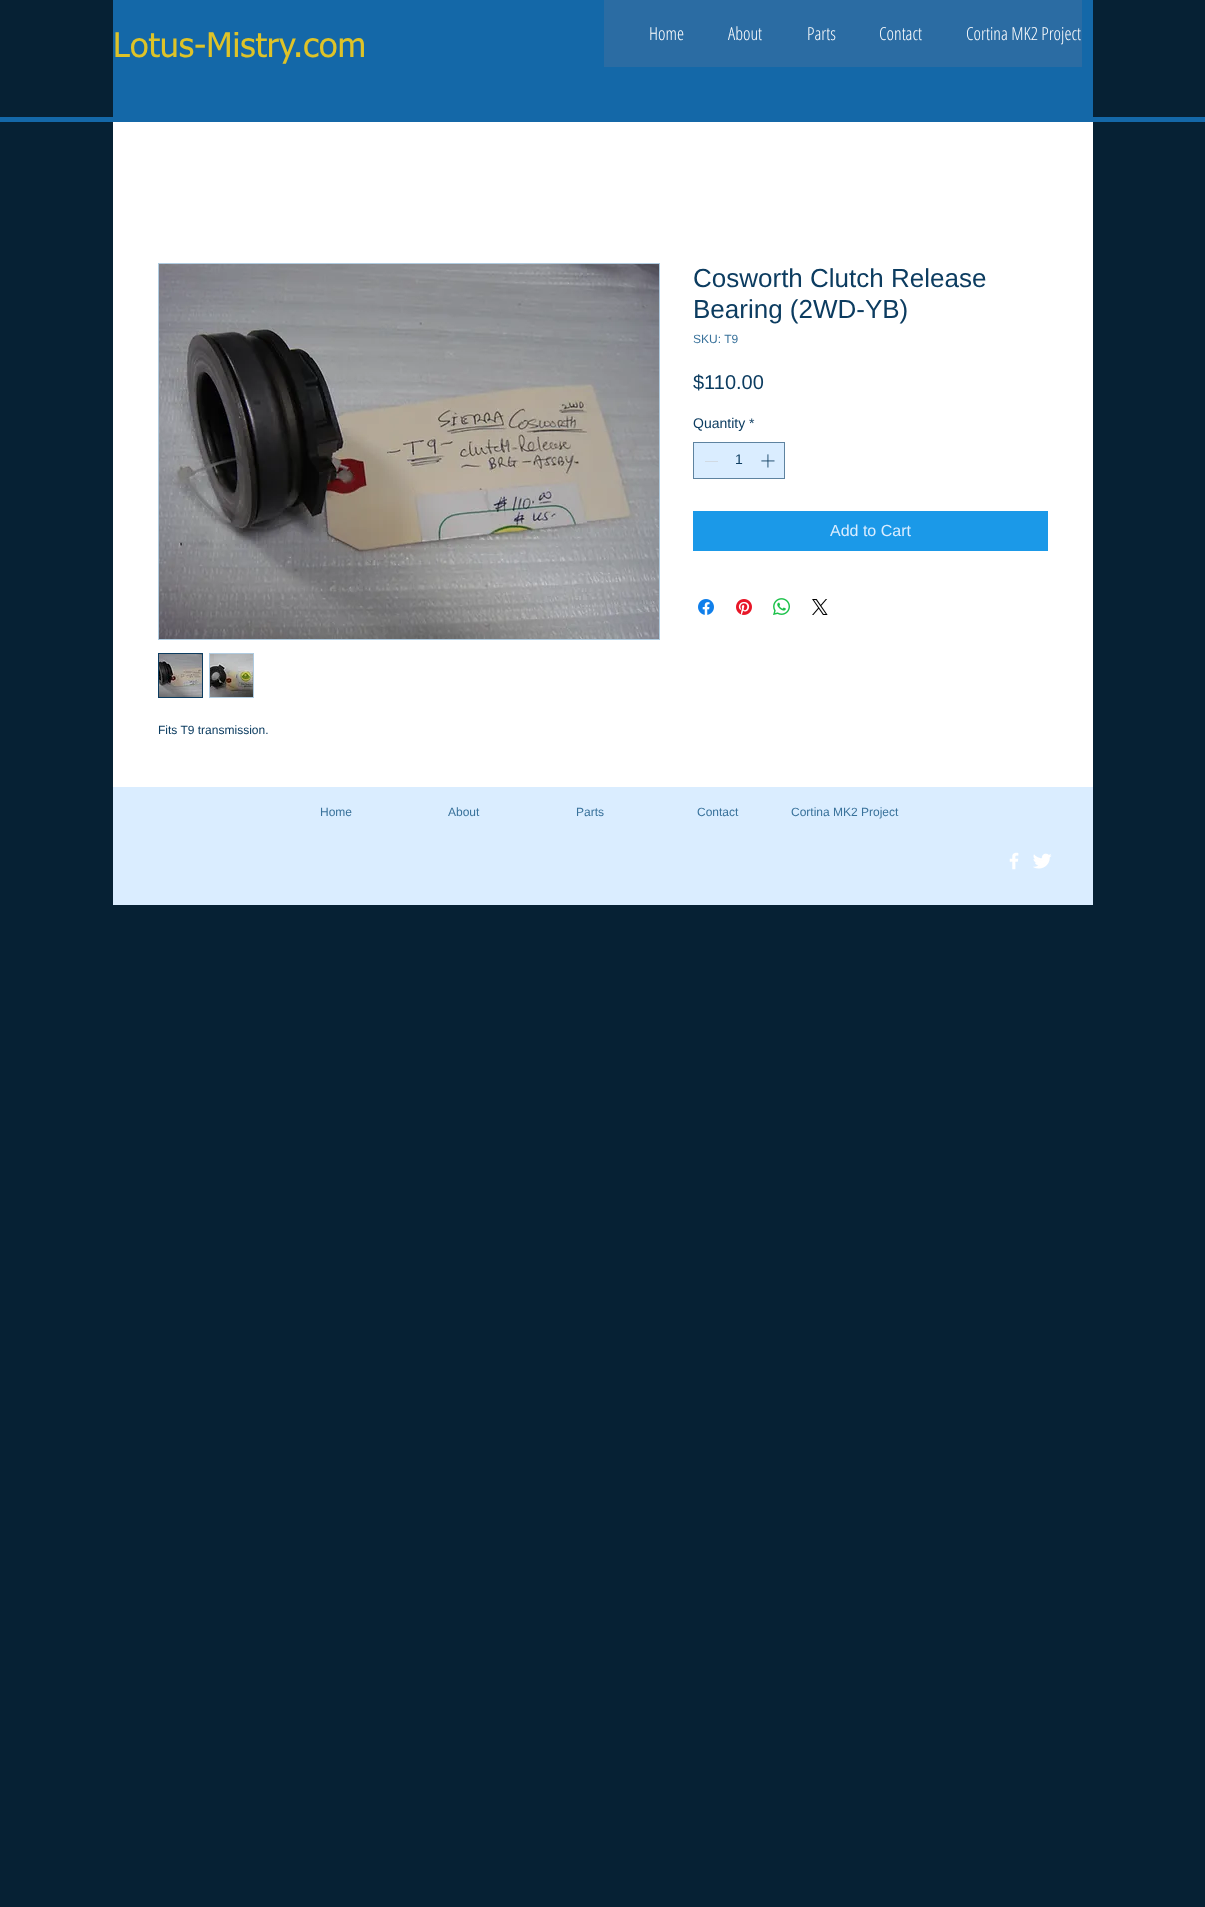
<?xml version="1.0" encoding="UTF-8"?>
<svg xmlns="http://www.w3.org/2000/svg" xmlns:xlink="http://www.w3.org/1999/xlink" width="1205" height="1907">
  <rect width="100%" height="100%" fill="#062134" />
  <rect x="113" width="980" height="117" fill="#1468a8" />
  <rect x="604" width="478" height="67" fill="#2b6ca3" />
  <rect y="117" width="1205" height="5" fill="#1468a8" />
  <rect x="113" y="122" width="980" height="665" fill="#ffffff" />
  <rect x="693.5" y="442.5" width="91" height="36" fill="#daedff" stroke="#5e83a0" />
  <rect x="705" y="461" width="13" height="1" fill="#d1dae3" />
  <image x="761" y="454" width="14" height="14" xlink:href="image1.png" />
  <rect x="693" y="511" width="355" height="40" fill="#1b99e8" />
  <image x="698" y="599" width="16" height="16" xlink:href="image2.png" />
  <image x="736" y="599" width="16" height="16" xlink:href="image3.png" />
  <image x="773" y="598" width="17" height="17" xlink:href="image4.png" />
  <image x="812" y="599" width="16" height="16" xlink:href="image5.png" />
  <rect x="158.5" y="263.5" width="501" height="376" fill="none" stroke="#afcbe0" />
  <image x="159" y="264" width="500" height="375" xlink:href="image6.png" />
  <rect x="158.5" y="653.5" width="44" height="44" fill="none" stroke="#0c3c60" />
  <image x="159" y="654" width="43" height="43" xlink:href="image7.png" />
  <rect x="209.5" y="653.5" width="44" height="44" fill="none" stroke="#afcbe0" />
  <image x="210" y="654" width="43" height="43" xlink:href="image8.png" />
  <rect x="113" y="787" width="980" height="118" fill="#daedff" />
  <image x="1009" y="852" width="10" height="18" xlink:href="image9.png" />
  <image x="1033" y="853" width="19" height="16" xlink:href="image10.png" />
  <text x="113" y="57" style="font-family: tahoma; font-size: 34px; fill: #dec328">Lotus-Mistry.com</text>
  <text x="649" y="40" style="font-family: Open Sans Condensed; font-size: 18px; font-weight: 300; fill: #ffffff">Home</text>
  <text x="728" y="40" style="font-family: Open Sans Condensed; font-size: 18px; font-weight: 300; fill: #ffffff">About</text>
  <text x="807" y="40" style="font-family: Open Sans Condensed; font-size: 18px; font-weight: 300; fill: #ffffff">Parts</text>
  <text x="879" y="40" style="font-family: Open Sans Condensed; font-size: 18px; font-weight: 300; fill: #ffffff">Contact</text>
  <text x="966" y="40" style="font-family: Open Sans Condensed; font-size: 18px; font-weight: 300; fill: #ffffff">Cortina MK2 Project</text>
  <text x="693" y="287" style="font-family: Liberation Sans; font-size: 26px; fill: #0c3c60">Cosworth Clutch Release</text>
  <text x="693" y="318" style="font-family: Liberation Sans; font-size: 26px; fill: #0c3c60">Bearing (2WD-YB)</text>
  <text x="693" y="343" style="font-family: Liberation Sans; font-size: 12px; fill: #39729b">SKU: T9</text>
  <text x="693" y="389" style="font-family: Liberation Sans; font-size: 20px; fill: #0c3c60">$110.00</text>
  <text x="693" y="428" style="font-family: Liberation Sans; font-size: 14px; fill: #0c3c60">Quantity *</text>
  <text x="735" y="464" style="font-family: Liberation Sans; font-size: 14px; fill: #0c3c60">1</text>
  <text x="830" y="536" style="font-family: Liberation Sans; font-size: 16px; fill: #daedff">Add to Cart</text>
  <text x="158" y="734" style="font-family: Liberation Sans; font-size: 12px; fill: #0c3c60">Fits T9 transmission.</text>
  <text x="320" y="816" style="font-family: Liberation Sans; font-size: 12px; fill: #39729b">Home</text>
  <text x="448" y="816" style="font-family: Liberation Sans; font-size: 12px; fill: #39729b">About</text>
  <text x="576" y="816" style="font-family: Liberation Sans; font-size: 12px; fill: #39729b">Parts</text>
  <text x="697" y="816" style="font-family: Liberation Sans; font-size: 12px; fill: #39729b">Contact</text>
  <text x="791" y="816" style="font-family: Liberation Sans; font-size: 12px; fill: #39729b">Cortina MK2 Project</text>
</svg>
